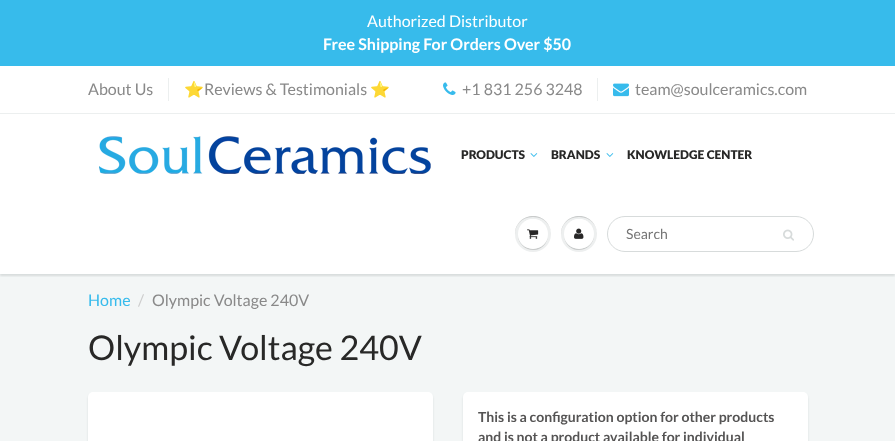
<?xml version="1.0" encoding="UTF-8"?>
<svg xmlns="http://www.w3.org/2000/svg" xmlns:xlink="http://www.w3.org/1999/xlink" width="895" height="441">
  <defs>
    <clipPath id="clip1"><rect x="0" y="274" width="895" height="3" /></clipPath>
  </defs>
  <rect width="100%" height="100%" fill="#ffffff" />
  <rect width="895" height="66" fill="#37bbeb" />
  <rect x="168" y="78" width="1" height="23" fill="#ecefef" />
  <image x="443" y="82" width="13" height="13" xlink:href="image1.png" />
  <rect x="597" y="78" width="1" height="23" fill="#ecefef" />
  <image x="613" y="83" width="16" height="14" xlink:href="image2.png" />
  <rect y="274" width="895" height="167" fill="#f3f6f6" />
  <g clip-path="url(#clip1)">
    <rect y="115" width="895" height="161" fill="#0b191c" fill-opacity="0.12" filter="blur(1px)" />
  </g>
  <rect y="113" width="895" height="1" fill="#ecefef" />
  <image x="99" y="136" width="332" height="38" xlink:href="image3.png" />
  <image x="530" y="153" width="8" height="4" xlink:href="image4.png" />
  <image x="606" y="153" width="8" height="4" xlink:href="image4.png" />
  <circle cx="533" cy="234" r="18" fill="#edefef" />
  <path d="M 533 217 c 12 0 18 8.5 18 17.5 c 0 -3.5 -1 -7.5 -3 -10.5 c -10 -15 -33.5 -7.5 -33 10.5 c 0 -9 6 -17.5 18 -17.5 z" fill="#c9cbcb" />
  <path d="M 548 234.5 c -0.5 19 -29.5 19 -30 0 c -0.5 15 19 21.5 27.5 9 c 1.5 -2.5 2.5 -6 2.5 -9 z" fill="#c9cbcb" />
  <circle cx="533" cy="234" r="15" fill="#ffffff" />
  <path d="M 533 220 c 10 0 15 7 15 14.5 c 0 -3 -1 -6.5 -2.5 -9 c -8.5 -12.5 -28 -6 -27.5 9 c 0 -7.5 5 -14.5 15 -14.5 z" fill="#ffffff" />
  <image x="527" y="229" width="12" height="10" xlink:href="image5.png" />
  <circle cx="579" cy="234" r="18" fill="#edefef" />
  <path d="M 579 217 c 12 0 18 8.5 18 17.5 c 0 -3.5 -1 -7.5 -3 -10.5 c -10 -15 -33.5 -7.5 -33 10.5 c 0 -9 6 -17.5 18 -17.5 z" fill="#c9cbcb" />
  <path d="M 594 234.5 c -0.5 19 -29.5 19 -30 0 c 0 3 1 6.5 2.5 9 c 8.5 12.5 28 6 27.5 -9 z" fill="#c9cbcb" />
  <circle cx="579" cy="234" r="15" fill="#ffffff" />
  <path d="M 579 220 c 10 0 15 7 15 14.5 c 0 -3 -1 -6.5 -2.5 -9 c -8.5 -12.5 -28 -6 -27.5 9 c 0 -7.5 5 -14.5 15 -14.5 z" fill="#ffffff" />
  <image x="574" y="228" width="10" height="11" xlink:href="image6.png" />
  <rect x="607.5" y="216.5" width="206" height="35" rx="17.5" fill="none" stroke="#d7dbdb" />
  <image x="783" y="229" width="11" height="12" xlink:href="image7.png" />
  <rect x="88" y="394" width="345" height="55" rx="5" fill="#0b191c" fill-opacity="0.1" filter="blur(1px)" />
  <rect x="88" y="392" width="345" height="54" rx="5" fill="#ffffff" />
  <rect x="463" y="394" width="345" height="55" rx="5" fill="#0b191c" fill-opacity="0.1" filter="blur(1px)" />
  <rect x="463" y="392" width="345" height="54" rx="5" fill="#ffffff" />
  <text x="367" y="27" style="font-family: Lato; font-size: 16px; fill: #ffffff">Authorized Distributor</text>
  <text x="323" y="50" style="font-family: Lato; font-size: 16px; font-weight: bold; fill: #ffffff">Free Shipping For Orders Over $50</text>
  <text x="88" y="95" style="font-family: Lato; font-size: 16px; fill: #898989">About Us</text>
  <text x="184" y="95" style="font-family: Noto Color Emoji; font-size: 16px; fill: #898989">⭐️</text>
  <text x="204" y="95" style="font-family: Lato; font-size: 16px; fill: #898989">Reviews &amp; Testimonials</text>
  <text x="370" y="95" style="font-family: Noto Color Emoji; font-size: 16px; fill: #898989">⭐️</text>
  <text x="462" y="95" style="font-family: Lato; font-size: 16px; fill: #898989">+1 831 256 3248</text>
  <text x="635" y="95" style="font-family: Lato; font-size: 16px; fill: #898989">team@soulceramics.com</text>
  <text x="461" y="159" style="font-family: Lato; font-size: 12px; font-weight: 900; fill: #282827">PRODUCTS</text>
  <text x="551" y="159" style="font-family: Lato; font-size: 12px; font-weight: 900; fill: #282827">BRANDS</text>
  <text x="627" y="159" style="font-family: Lato; font-size: 12px; font-weight: 900; fill: #282827">KNOWLEDGE CENTER</text>
  <text x="626" y="239" style="font-family: Lato; font-size: 14px; fill: #757575">Search</text>
  <text x="88" y="306" style="font-family: Lato; font-size: 16px; fill: #37bbec">Home</text>
  <text x="138" y="306" style="font-family: Lato; font-size: 16px; fill: #cccccc">/</text>
  <text x="152" y="306" style="font-family: Lato; font-size: 16px; fill: #898989">Olympic Voltage 240V</text>
  <text x="88" y="360" style="font-family: Lato; font-size: 34px; fill: #282827">Olympic Voltage 240V</text>
  <text x="478" y="422" style="font-family: Lato; font-size: 14px; font-weight: bold; fill: #555454">This is a configuration option for other products</text>
  <text x="478" y="442" style="font-family: Lato; font-size: 14px; font-weight: bold; fill: #555454">and is not a product available for individual</text>
</svg>
